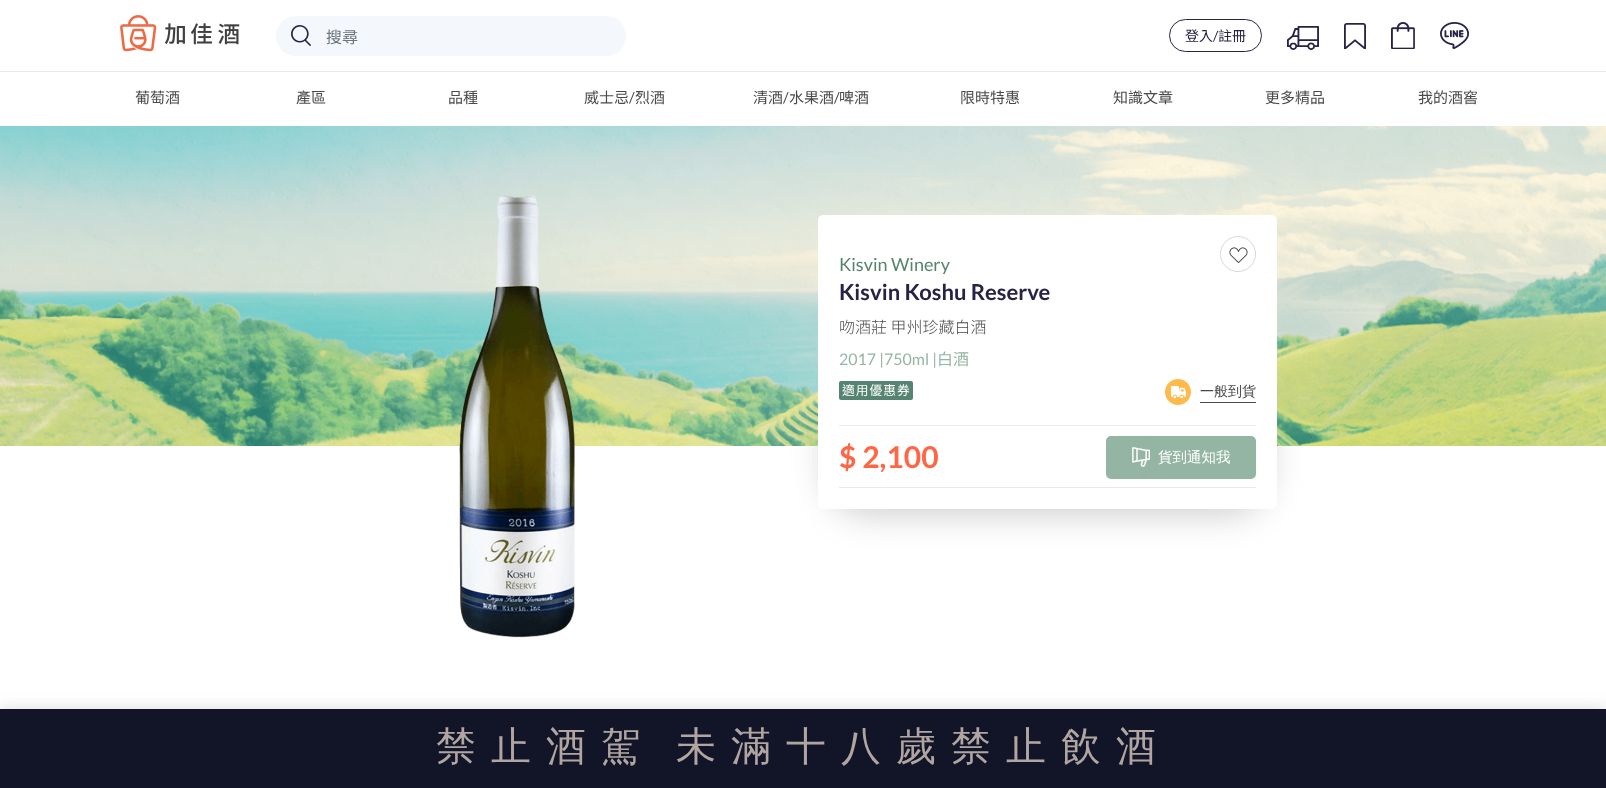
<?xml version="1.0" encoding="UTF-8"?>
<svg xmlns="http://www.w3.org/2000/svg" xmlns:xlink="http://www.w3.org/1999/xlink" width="1606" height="788">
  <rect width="100%" height="100%" fill="#ffffff" />
  <rect y="71" width="1606" height="1" fill="#eaeaea" />
  <image x="120" y="15" width="120" height="37" xlink:href="image1.png" />
  <rect x="276" y="16" width="350" height="40" rx="20" fill="#f4f7fb" />
  <image x="291" y="25" width="20" height="21" xlink:href="image2.png" />
  <rect x="1169.5" y="19.5" width="92" height="32" rx="16" fill="none" stroke="#292245" />
  <image x="1287" y="26" width="32" height="24" xlink:href="image3.png" />
  <image x="1344" y="23" width="22" height="26" xlink:href="image4.png" />
  <image x="1391" y="22" width="24" height="27" xlink:href="image5.png" />
  <image x="1440" y="22" width="29" height="27" xlink:href="image6.png" />
  <rect x="827" y="278" width="441" height="236" rx="40" fill="#000000" fill-opacity="0.2" filter="blur(17.5px)" />
  <image x="0" y="126" width="1606" height="320" xlink:href="image7.png" />
  <image x="458" y="195" width="117" height="443" xlink:href="image8.png" />
  <rect x="818" y="215" width="459" height="294" rx="5" fill="#ffffff" />
  <circle cx="1238" cy="254" r="17.5" fill="none" stroke="#d8d8d8" />
  <image x="1229" y="247" width="19" height="16" xlink:href="image9.png" />
  <rect x="839" y="381" width="74" height="19" rx="2" fill="#558472" />
  <image x="1165" y="379" width="26" height="26" xlink:href="image10.png" />
  <rect x="1200" y="402" width="56" height="1" fill="#4a4a4a" />
  <rect x="839" y="425" width="417" height="1" fill="#eaeaea" />
  <rect x="839" y="487" width="417" height="1" fill="#eaeaea" />
  <rect x="1106" y="436" width="150" height="43" rx="5" fill="#94b5a3" />
  <image x="1132" y="447" width="18" height="20" xlink:href="image11.png" />
  <rect x="-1" y="709" width="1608" height="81" fill="#454547" fill-opacity="0.2" filter="blur(8px)" />
  <rect y="709" width="1606" height="79" fill="#121528" />
  <text x="326" y="43" style="font-family: Noto Sans TC; font-size: 16px; fill: #6c757d">搜尋</text>
  <text x="1185" y="41" style="font-family: Noto Sans TC; font-size: 14px; fill: #292245">登入</text>
  <text x="1213" y="41" style="font-family: Lato; font-size: 14px; fill: #292245">/</text>
  <text x="1218" y="41" style="font-family: Noto Sans TC; font-size: 14px; fill: #292245">註冊</text>
  <text x="135" y="103" style="font-family: Noto Sans TC; font-size: 15px; fill: #4a4a4a">葡萄酒</text>
  <text x="296" y="103" style="font-family: Noto Sans TC; font-size: 15px; fill: #4a4a4a">產區</text>
  <text x="448" y="103" style="font-family: Noto Sans TC; font-size: 15px; fill: #4a4a4a">品種</text>
  <text x="584" y="103" style="font-family: Noto Sans TC; font-size: 15px; fill: #4a4a4a">威士忌</text>
  <text x="629" y="103" style="font-family: Lato; font-size: 15px; fill: #4a4a4a">/</text>
  <text x="635" y="103" style="font-family: Noto Sans TC; font-size: 15px; fill: #4a4a4a">烈酒</text>
  <text x="753" y="103" style="font-family: Noto Sans TC; font-size: 15px; fill: #4a4a4a">清酒</text>
  <text x="783" y="103" style="font-family: Lato; font-size: 15px; fill: #4a4a4a">/</text>
  <text x="789" y="103" style="font-family: Noto Sans TC; font-size: 15px; fill: #4a4a4a">水果酒</text>
  <text x="834" y="103" style="font-family: Lato; font-size: 15px; fill: #4a4a4a">/</text>
  <text x="839" y="103" style="font-family: Noto Sans TC; font-size: 15px; fill: #4a4a4a">啤酒</text>
  <text x="960" y="103" style="font-family: Noto Sans TC; font-size: 15px; fill: #4a4a4a">限時特惠</text>
  <text x="1113" y="103" style="font-family: Noto Sans TC; font-size: 15px; fill: #4a4a4a">知識文章</text>
  <text x="1265" y="103" style="font-family: Noto Sans TC; font-size: 15px; fill: #4a4a4a">更多精品</text>
  <text x="1418" y="103" style="font-family: Noto Sans TC; font-size: 15px; fill: #4a4a4a">我的酒窖</text>
  <text x="839" y="271" style="font-family: Lato; font-size: 18px; fill: #55846b">Kisvin Winery</text>
  <text x="839" y="300" style="font-family: Lato; font-size: 22px; font-weight: bold; fill: #292245">Kisvin Koshu Reserve</text>
  <text x="839" y="333" style="font-family: Noto Sans TC; font-size: 16px; font-weight: 300; fill: #4a4a4a">吻酒莊 甲州珍藏白酒</text>
  <text x="839" y="365" style="font-family: Lato; font-size: 16px; fill: #94b5a3">2017 |750ml |</text>
  <text x="937" y="365" style="font-family: Noto Sans TC; font-size: 16px; fill: #94b5a3">白酒</text>
  <text x="842" y="395" style="font-family: Noto Sans TC; font-size: 12.75px; letter-spacing: 1px; fill: #ffffff">適用優惠券</text>
  <text x="1200" y="396" style="font-family: WenQuanYi Zen Hei; font-size: 14px; font-weight: 500; fill: #4a4a4a">一般到貨</text>
  <text x="839" y="468" style="font-family: Lato; font-size: 30px; font-weight: bold; fill: #ff6645">$ 2,100</text>
  <text x="1158" y="462" style="font-family: WenQuanYi Zen Hei; font-size: 14.5px; font-weight: 500; fill: #ffffff">貨到通知我</text>
  <text x="436" y="760" style="font-family: WenQuanYi Zen Hei; font-size: 40px; font-weight: 500; letter-spacing: 15px; fill: #b1a5a2">禁止酒駕</text>
  <text x="676" y="760" style="font-family: WenQuanYi Zen Hei; font-size: 40px; font-weight: 500; letter-spacing: 15px; fill: #b1a5a2">未滿十八歲禁止飲酒</text>
</svg>
